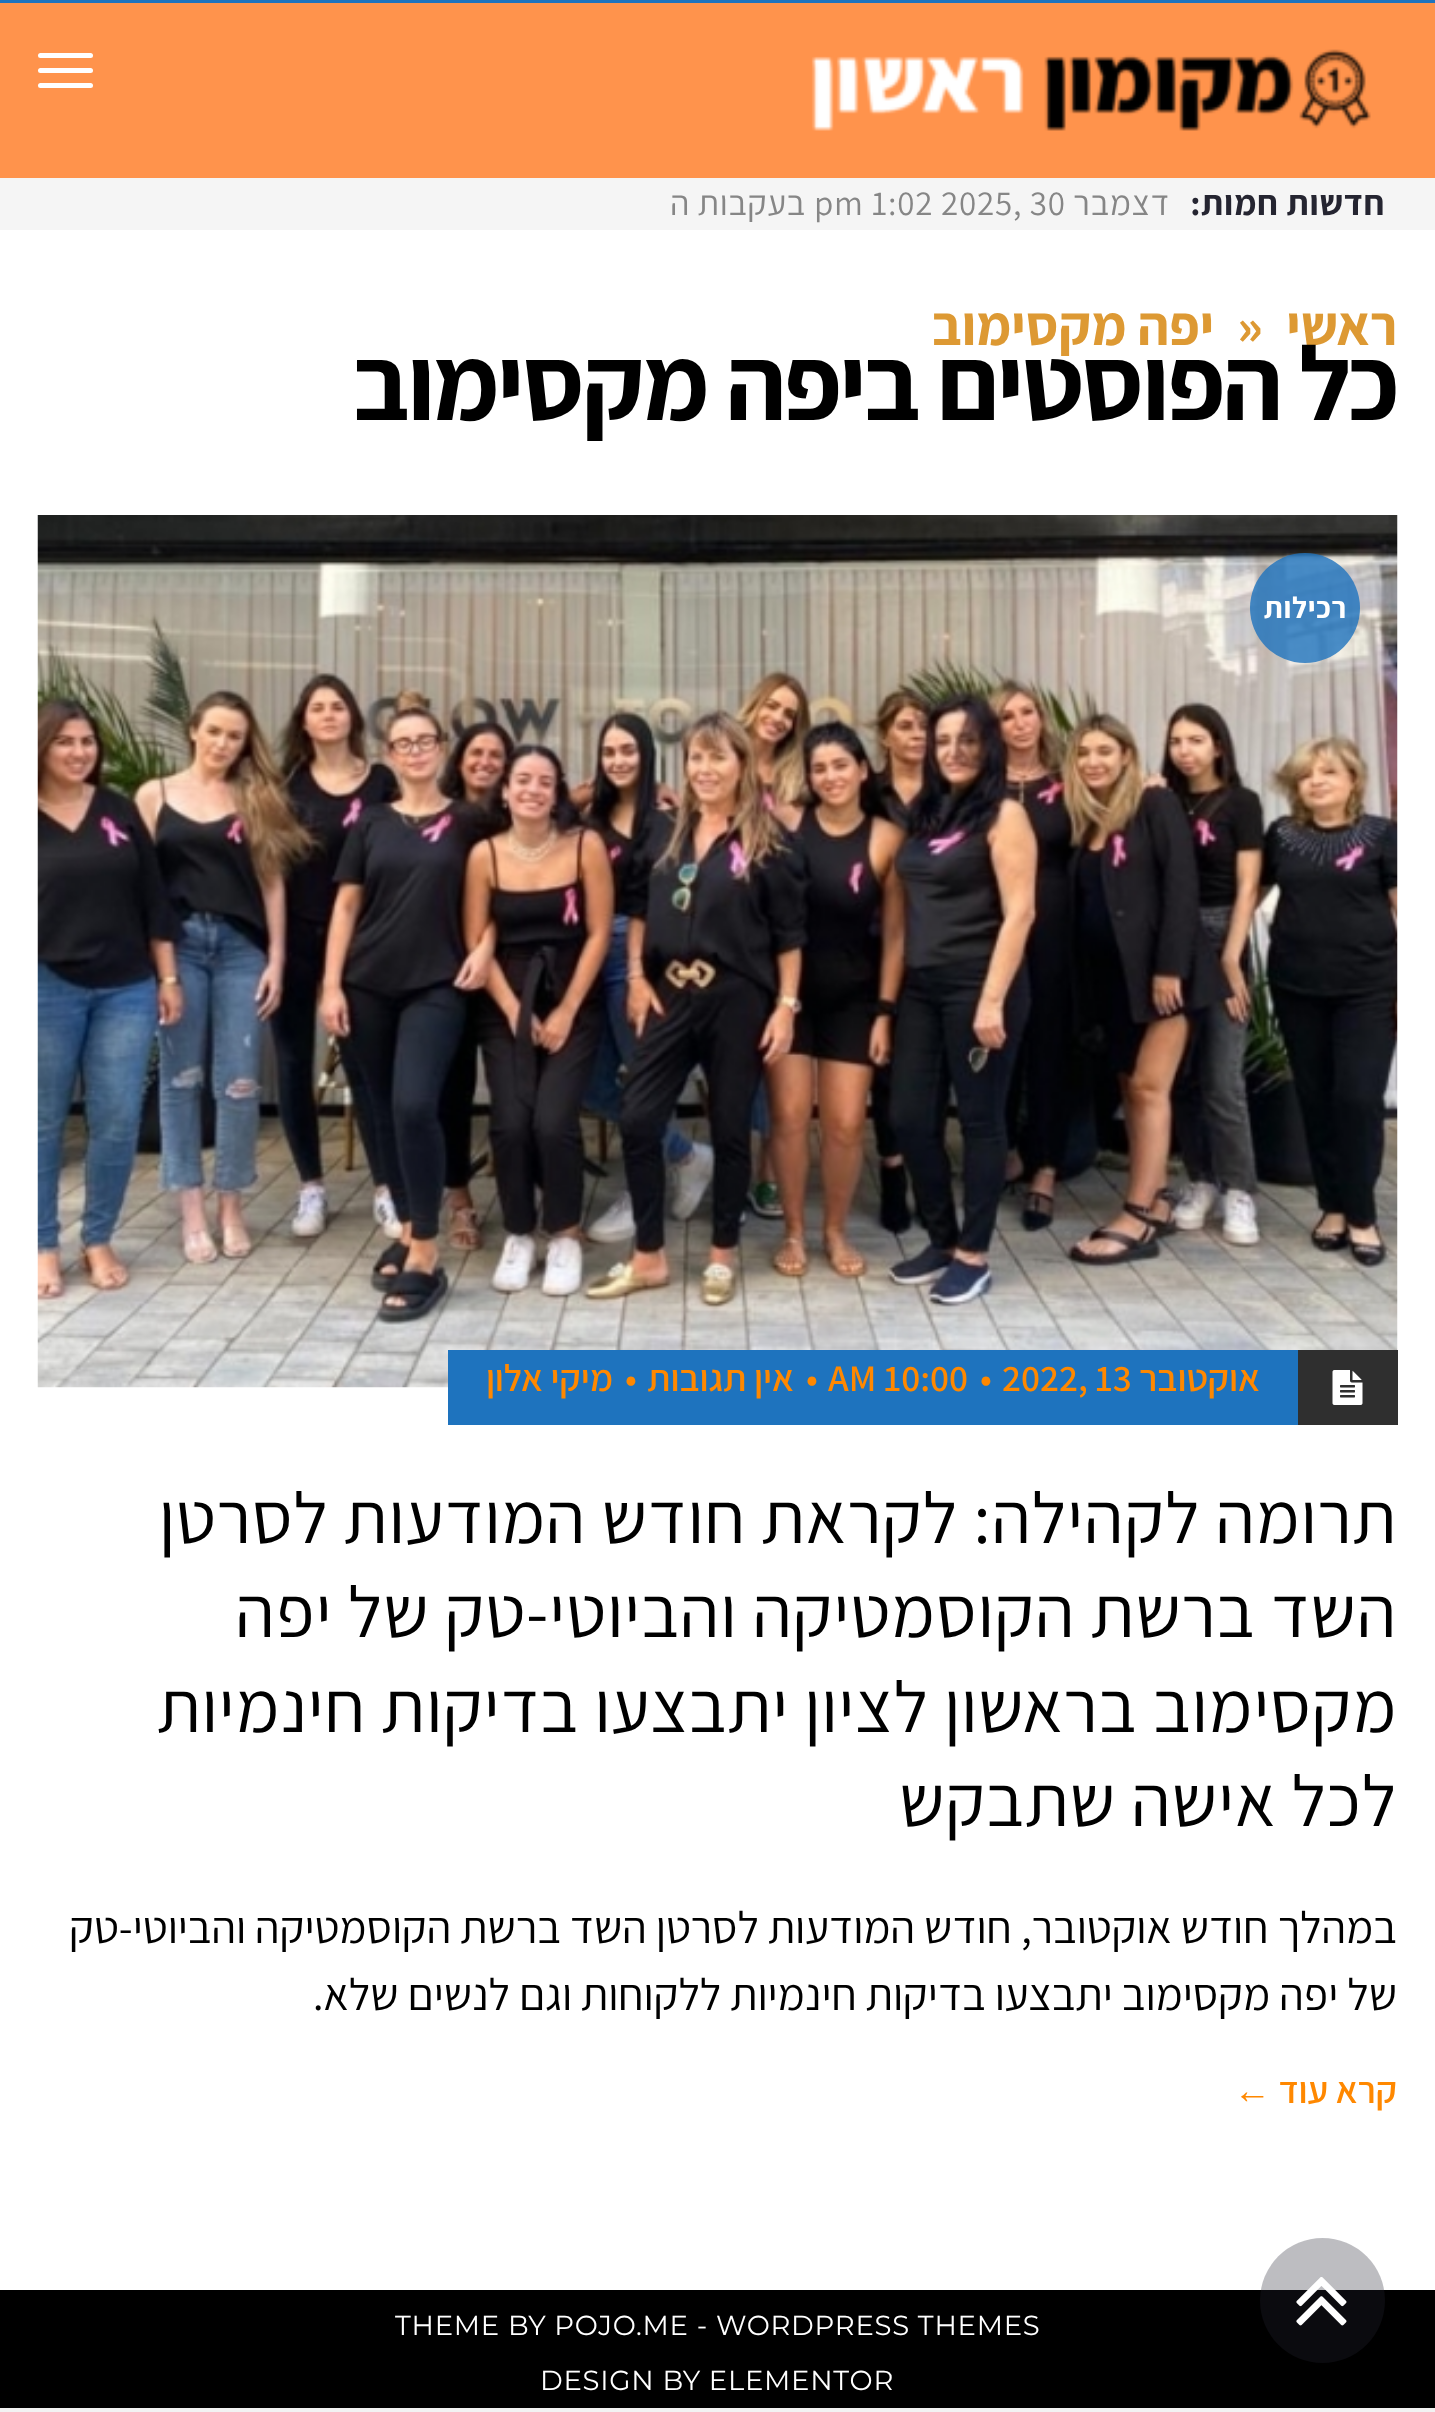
<?xml version="1.0" encoding="UTF-8"?>
<svg xmlns="http://www.w3.org/2000/svg" xmlns:xlink="http://www.w3.org/1999/xlink" width="1435" height="2412">
  <rect width="100%" height="100%" fill="#f2f2f2" />
  <rect y="3" width="1435" height="175" fill="#ff934c" />
  <rect width="1435" height="3" fill="#1e73be" />
  <image x="811" y="49" width="560" height="82" xlink:href="image1.png" />
  <rect x="38" y="53" width="55" height="5" rx="2.5" fill="#ffffff" />
  <rect x="38" y="68" width="55" height="5" rx="2.5" fill="#ffffff" />
  <rect x="38" y="83" width="55" height="5" rx="2.5" fill="#ffffff" />
  <rect y="178" width="1435" height="52" fill="#f5f5f5" />
  <rect y="230" width="1435" height="2060" fill="#ffffff" />
  <image x="37" y="515" width="1361" height="873" xlink:href="image2.png" />
  <circle cx="1305" cy="608" r="55" fill="#1e73be" fill-opacity="0.8" />
  <rect x="448" y="1350" width="850" height="75" fill="#1e73be" />
  <rect x="1298" y="1350" width="100" height="75" fill="#2f2f2f" />
  <image x="1332" y="1370" width="31" height="35" xlink:href="image3.png" />
  <rect y="2290" width="1435" height="118" fill="#000000" />
  <circle cx="1322.5" cy="2300.5" r="62.5" fill="#252531" fill-opacity="0.3" />
  <image x="1296" y="2277" width="51" height="49" xlink:href="image4.png" />
  <text x="1385" y="215" style="font-family: Assistant; font-size: 35px; font-weight: bold; letter-spacing: 0.75px; direction: rtl; fill: #252531">חדשות חמות:</text>
  <text x="1170" y="215" style="font-family: Assistant; font-size: 35px; letter-spacing: 0.75px; direction: rtl; fill: #868686">דצמבר</text>
  <text x="941" y="215" style="font-family: Assistant; font-size: 35px; letter-spacing: 0.75px; fill: #868686">2025, 30</text>
  <text x="814" y="215" style="font-family: Assistant; font-size: 35px; letter-spacing: 0.75px; fill: #868686">pm 1:02</text>
  <text x="806" y="215" style="font-family: Assistant; font-size: 35px; letter-spacing: 0.75px; direction: rtl; fill: #868686">בעקבות ה</text>
  <text x="1397" y="345" style="font-family: Assistant; font-size: 55px; font-weight: bold; direction: rtl; fill: #dd9933">ראשי</text>
  <text x="1237" y="345" style="font-family: Assistant; font-size: 55px; font-weight: bold; fill: #dd9933">»</text>
  <text x="1214" y="345" style="font-family: Assistant; font-size: 55px; font-weight: bold; direction: rtl; fill: #dd9933">יפה מקסימוב</text>
  <text x="1397" y="420" style="font-family: Assistant; font-size: 105px; font-weight: bold; letter-spacing: -2.5px; direction: rtl; fill: #000000">כל הפוסטים ב</text>
  <text x="864" y="420" style="font-family: Assistant; font-size: 105px; font-weight: bold; letter-spacing: -2.5px; direction: rtl; fill: #000000">יפה מקסימוב</text>
  <text x="1347" y="618" style="font-family: Assistant; font-size: 30px; font-weight: bold; letter-spacing: 0.75px; direction: rtl; fill: #ffffff">רכילות</text>
  <text x="1260" y="1391" style="font-family: Assistant; font-size: 37.5px; font-weight: 600; direction: rtl; fill: #ff8800">אוקטובר</text>
  <text x="1002" y="1391" style="font-family: Assistant; font-size: 37.5px; font-weight: 600; fill: #ff8800">2022, 13</text>
  <text x="980" y="1391" style="font-family: Assistant; font-size: 37.5px; font-weight: 600; fill: #ff8800">•</text>
  <text x="828" y="1391" style="font-family: Assistant; font-size: 37.5px; font-weight: 600; fill: #ff8800">AM 10:00</text>
  <text x="806" y="1391" style="font-family: Assistant; font-size: 37.5px; font-weight: 600; fill: #ff8800">•</text>
  <text x="794" y="1391" style="font-family: Assistant; font-size: 37.5px; font-weight: 600; direction: rtl; fill: #ff8800">אין תגובות</text>
  <text x="625" y="1391" style="font-family: Assistant; font-size: 37.5px; font-weight: 600; fill: #ff8800">•</text>
  <text x="613" y="1391" style="font-family: Assistant; font-size: 37.5px; font-weight: 600; direction: rtl; fill: #ff8800">מיקי אלון</text>
  <text x="1397" y="1543" style="font-family: Assistant; font-size: 72.5px; letter-spacing: 0.75px; direction: rtl; fill: #000000">תרומה לקהילה: לקראת חודש המודעות לסרטן</text>
  <text x="1397" y="1637" style="font-family: Assistant; font-size: 72.5px; letter-spacing: 0.75px; direction: rtl; fill: #000000">השד ברשת הקוסמטיקה והביוטי-טק של יפה</text>
  <text x="1397" y="1732" style="font-family: Assistant; font-size: 72.5px; letter-spacing: 0.75px; direction: rtl; fill: #000000">מקסימוב בראשון לציון יתבצעו בדיקות חינמיות</text>
  <text x="1397" y="1826" style="font-family: Assistant; font-size: 72.5px; letter-spacing: 0.75px; direction: rtl; fill: #000000">לכל אישה שתבקש</text>
  <text x="1397" y="1943" style="font-family: Assistant; font-size: 45px; direction: rtl; fill: #000000">במהלך חודש אוקטובר, חודש המודעות לסרטן השד ברשת הקוסמטיקה והביוטי-טק</text>
  <text x="1397" y="2010" style="font-family: Assistant; font-size: 45px; direction: rtl; fill: #000000">של יפה מקסימוב יתבצעו בדיקות חינמיות ללקוחות וגם לנשים שלא.</text>
  <text x="1397" y="2103" style="font-family: Assistant; font-size: 37.5px; font-weight: 600; direction: rtl; fill: #ff8800">קרא עוד</text>
  <text x="1271" y="2103" style="font-family: Liberation Sans; font-size: 37.5px; font-weight: bold; direction: rtl; fill: #ff8800">←</text>
  <text x="395" y="2335" style="font-family: Montserrat; font-size: 27.5px; letter-spacing: 0.75px; fill: #ffffff">THEME BY POJO.ME - WORDPRESS THEMES</text>
  <text x="540" y="2390" style="font-family: Montserrat; font-size: 27.5px; letter-spacing: 0.75px; fill: #ffffff">DESIGN BY ELEMENTOR</text>
</svg>
